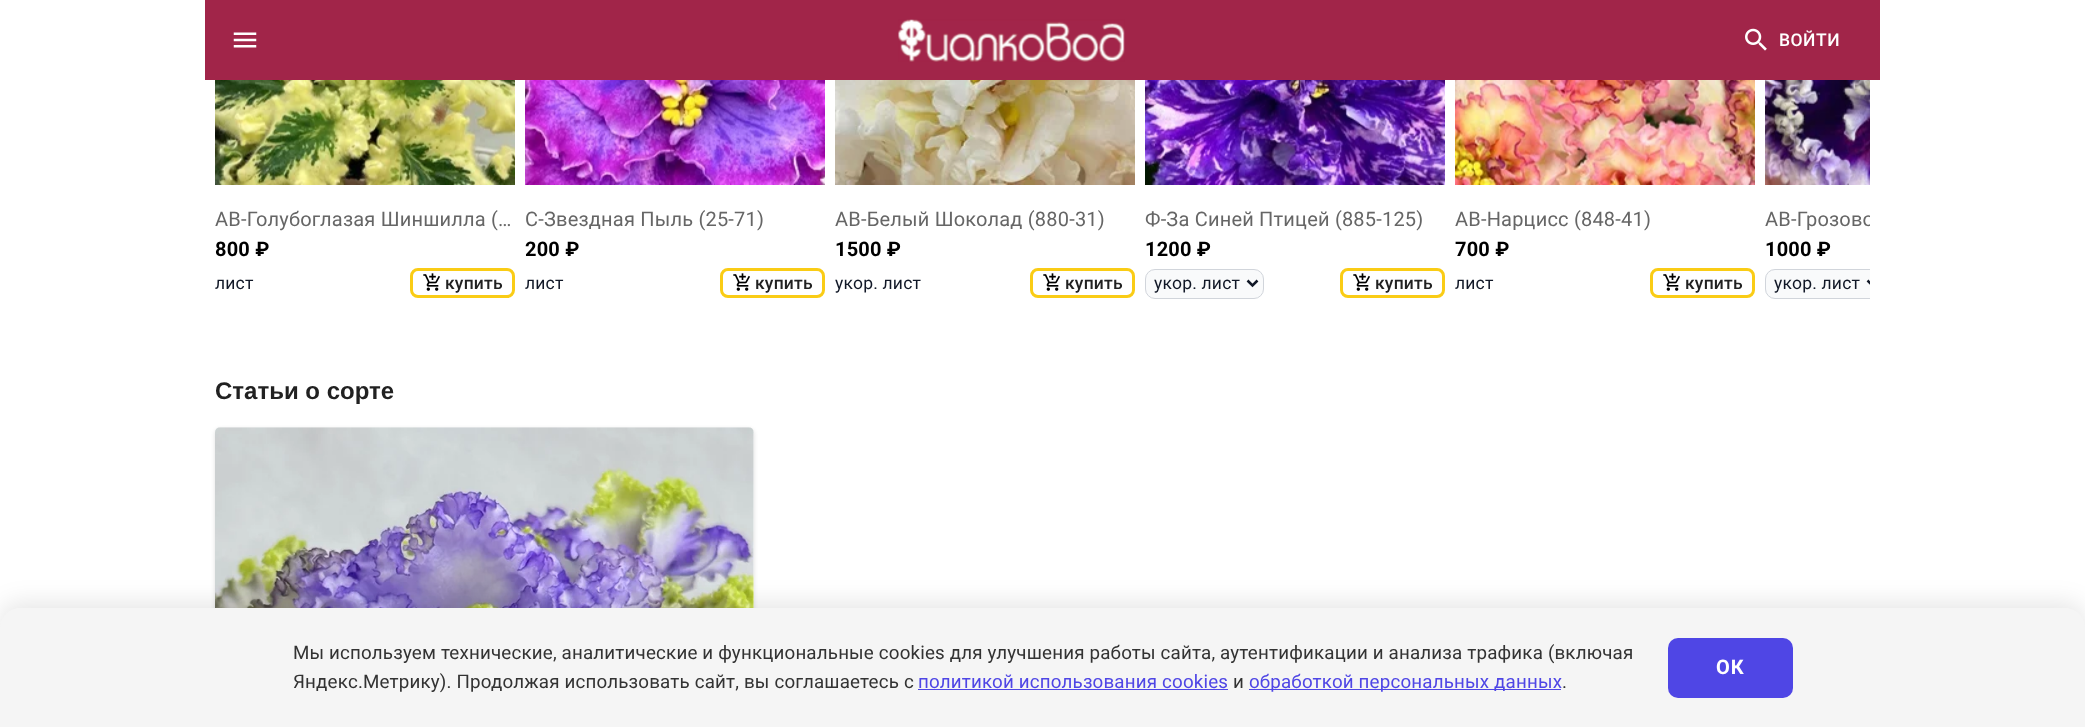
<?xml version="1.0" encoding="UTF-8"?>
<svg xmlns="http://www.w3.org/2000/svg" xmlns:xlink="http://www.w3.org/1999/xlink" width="2085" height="727">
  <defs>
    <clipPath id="clip1"><rect x="215" width="1655" height="335" /></clipPath>
    <clipPath id="clip2"><rect x="1765" y="205" width="105" height="30" /></clipPath>
  </defs>
  <rect width="100%" height="100%" fill="#ffffff" />
  <rect x="205" width="1675" height="80" fill="#a12549" />
  <image x="233" y="32" width="24" height="16" xlink:href="image1.png" />
  <image x="898" y="19" width="227" height="43" xlink:href="image2.png" />
  <image x="1745" y="28" width="22" height="23" xlink:href="image3.png" />
  <image x="215" y="80" width="300" height="105" xlink:href="image4.png" />
  <rect x="411.5" y="269.5" width="102" height="27" rx="6.5" fill="none" stroke="#facc15" stroke-width="3" />
  <image x="423" y="273" width="17" height="18" xlink:href="image5.png" />
  <image x="525" y="80" width="300" height="105" xlink:href="image6.png" />
  <rect x="721.5" y="269.5" width="102" height="27" rx="6.5" fill="none" stroke="#facc15" stroke-width="3" />
  <image x="733" y="273" width="17" height="18" xlink:href="image5.png" />
  <image x="835" y="80" width="300" height="105" xlink:href="image7.png" />
  <rect x="1031.5" y="269.5" width="102" height="27" rx="6.5" fill="none" stroke="#facc15" stroke-width="3" />
  <image x="1043" y="273" width="17" height="18" xlink:href="image5.png" />
  <image x="1145" y="80" width="300" height="105" xlink:href="image8.png" />
  <rect x="1145.5" y="269.5" width="118" height="29" rx="9.5" fill="#f9fafb" stroke="#d1d5db" />
  <path d="M 1247.5 280.5 l 5 5 l 5 -5" fill="none" stroke="#111827" stroke-width="2.5" />
  <rect x="1341.5" y="269.5" width="102" height="27" rx="6.5" fill="none" stroke="#facc15" stroke-width="3" />
  <image x="1353" y="273" width="17" height="18" xlink:href="image5.png" />
  <image x="1455" y="80" width="300" height="105" xlink:href="image9.png" />
  <rect x="1651.5" y="269.5" width="102" height="27" rx="6.5" fill="none" stroke="#facc15" stroke-width="3" />
  <image x="1663" y="273" width="17" height="18" xlink:href="image5.png" />
  <image x="1765" y="80" width="105" height="105" xlink:href="image10.png" />
  <path d="M 1775 269 h 95 v 30 h -95 c -5.5 0 -10 -4.5 -10 -10 v -10 c 0 -5.5 4.5 -10 10 -10 z" fill="#f9fafb" />
  <g clip-path="url(#clip1)">
    <rect x="1765.5" y="269.5" width="118" height="29" rx="9.5" fill="none" stroke="#d1d5db" />
    <path d="M 1867.5 280.5 l 5 5 l 5 -5" fill="none" stroke="#111827" stroke-width="2.5" />
  </g>
  <rect x="215" y="429" width="539" height="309" rx="5" fill="#000000" fill-opacity="0.12" filter="blur(2px)" />
  <rect x="215" y="429" width="539" height="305" rx="5" fill="#000000" fill-opacity="0.14" filter="blur(0.5px)" />
  <rect x="215" y="428" width="539" height="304" rx="5" fill="#ffffff" />
  <image x="215" y="427" width="539" height="181" xlink:href="image11.png" />
  <rect y="603" width="2085" height="120" rx="20" fill="#000000" fill-opacity="0.1" filter="blur(12.5px)" />
  <path d="M 20 608 h 2045 c 11 0 20 9 20 20 v 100 h -2085 v -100 c 0 -11 9 -20 20 -20 z" fill="#f5f5f5" />
  <rect x="918" y="689" width="310" height="1" fill="#4f46e5" />
  <rect x="1249" y="689" width="312" height="1" fill="#4f46e5" />
  <rect x="1668" y="638" width="125" height="60" rx="10" fill="#4f46e5" />
  <text x="1779" y="46" style="font-family: Roboto; font-size: 17.5px; font-weight: 500; letter-spacing: 0.5px; fill: #ffffff">ВОЙТИ</text>
  <text x="215" y="226" style="font-family: Roboto; font-size: 20px; letter-spacing: 0.2px; fill: #666666">АВ-Голубоглазая Шиншилла (…</text>
  <text x="215" y="256" style="font-family: Roboto; font-size: 20px; font-weight: bold; letter-spacing: 0.2px; fill: #000000">800 ₽</text>
  <text x="215" y="289" style="font-family: Roboto; font-size: 17.5px; letter-spacing: 0.2px; fill: #111827">лист</text>
  <text x="445" y="289" style="font-family: Roboto; font-size: 17.5px; font-weight: 500; letter-spacing: 0.2px; fill: #212121">купить</text>
  <text x="525" y="226" style="font-family: Roboto; font-size: 20px; letter-spacing: 0.2px; fill: #666666">С-Звездная Пыль (25-71)</text>
  <text x="525" y="256" style="font-family: Roboto; font-size: 20px; font-weight: bold; letter-spacing: 0.2px; fill: #000000">200 ₽</text>
  <text x="525" y="289" style="font-family: Roboto; font-size: 17.5px; letter-spacing: 0.2px; fill: #111827">лист</text>
  <text x="755" y="289" style="font-family: Roboto; font-size: 17.5px; font-weight: 500; letter-spacing: 0.2px; fill: #212121">купить</text>
  <text x="835" y="226" style="font-family: Roboto; font-size: 20px; letter-spacing: 0.2px; fill: #666666">АВ-Белый Шоколад (880-31)</text>
  <text x="835" y="256" style="font-family: Roboto; font-size: 20px; font-weight: bold; letter-spacing: 0.2px; fill: #000000">1500 ₽</text>
  <text x="835" y="289" style="font-family: Roboto; font-size: 17.5px; letter-spacing: 0.2px; fill: #111827">укор. лист</text>
  <text x="1065" y="289" style="font-family: Roboto; font-size: 17.5px; font-weight: 500; letter-spacing: 0.2px; fill: #212121">купить</text>
  <text x="1145" y="226" style="font-family: Roboto; font-size: 20px; letter-spacing: 0.2px; fill: #666666">Ф-За Синей Птицей (885-125)</text>
  <text x="1145" y="256" style="font-family: Roboto; font-size: 20px; font-weight: bold; letter-spacing: 0.2px; fill: #000000">1200 ₽</text>
  <text x="1154" y="289" style="font-family: Roboto; font-size: 17.5px; letter-spacing: 0.2px; fill: #111827">укор. лист</text>
  <text x="1375" y="289" style="font-family: Roboto; font-size: 17.5px; font-weight: 500; letter-spacing: 0.2px; fill: #212121">купить</text>
  <text x="1455" y="226" style="font-family: Roboto; font-size: 20px; letter-spacing: 0.2px; fill: #666666">АВ-Нарцисс (848-41)</text>
  <text x="1455" y="256" style="font-family: Roboto; font-size: 20px; font-weight: bold; letter-spacing: 0.2px; fill: #000000">700 ₽</text>
  <text x="1455" y="289" style="font-family: Roboto; font-size: 17.5px; letter-spacing: 0.2px; fill: #111827">лист</text>
  <text x="1685" y="289" style="font-family: Roboto; font-size: 17.5px; font-weight: 500; letter-spacing: 0.2px; fill: #212121">купить</text>
  <g clip-path="url(#clip2)">
    <text x="1765" y="226" style="font-family: Roboto; font-size: 20px; letter-spacing: 0.2px; fill: #666666">АВ-Грозово</text>
  </g>
  <text x="1765" y="256" style="font-family: Roboto; font-size: 20px; font-weight: bold; letter-spacing: 0.2px; fill: #000000">1000 ₽</text>
  <text x="1774" y="289" style="font-family: Roboto; font-size: 17.5px; letter-spacing: 0.2px; fill: #111827">укор. лист</text>
  <text x="215" y="399" style="font-family: Liberation Sans; font-size: 24px; font-weight: bold; fill: #212121">Статьи о сорте</text>
  <text x="293" y="659" style="font-family: Roboto; font-size: 18.75px; letter-spacing: 0.18px; fill: #333333">Мы используем технические, аналитические и функциональные cookies для улучшения работы сайта, аутентификации и анализа трафика (включая</text>
  <text x="293" y="688" style="font-family: Roboto; font-size: 18.75px; letter-spacing: 0.18px; fill: #333333">Яндекс.Метрику). Продолжая использовать сайт, вы соглашаетесь с</text>
  <text x="918" y="688" style="font-family: Roboto; font-size: 18.75px; letter-spacing: 0.18px; fill: #4f46e5">политикой использования cookies</text>
  <text x="1233" y="688" style="font-family: Roboto; font-size: 18.75px; letter-spacing: 0.18px; fill: #333333">и</text>
  <text x="1249" y="688" style="font-family: Roboto; font-size: 18.75px; letter-spacing: 0.18px; fill: #4f46e5">обработкой персональных данных</text>
  <text x="1562" y="688" style="font-family: Roboto; font-size: 18.75px; letter-spacing: 0.18px; fill: #333333">.</text>
  <text x="1716" y="674" style="font-family: Roboto; font-size: 20px; font-weight: bold; letter-spacing: 1px; fill: #ffffff">ОК</text>
</svg>
